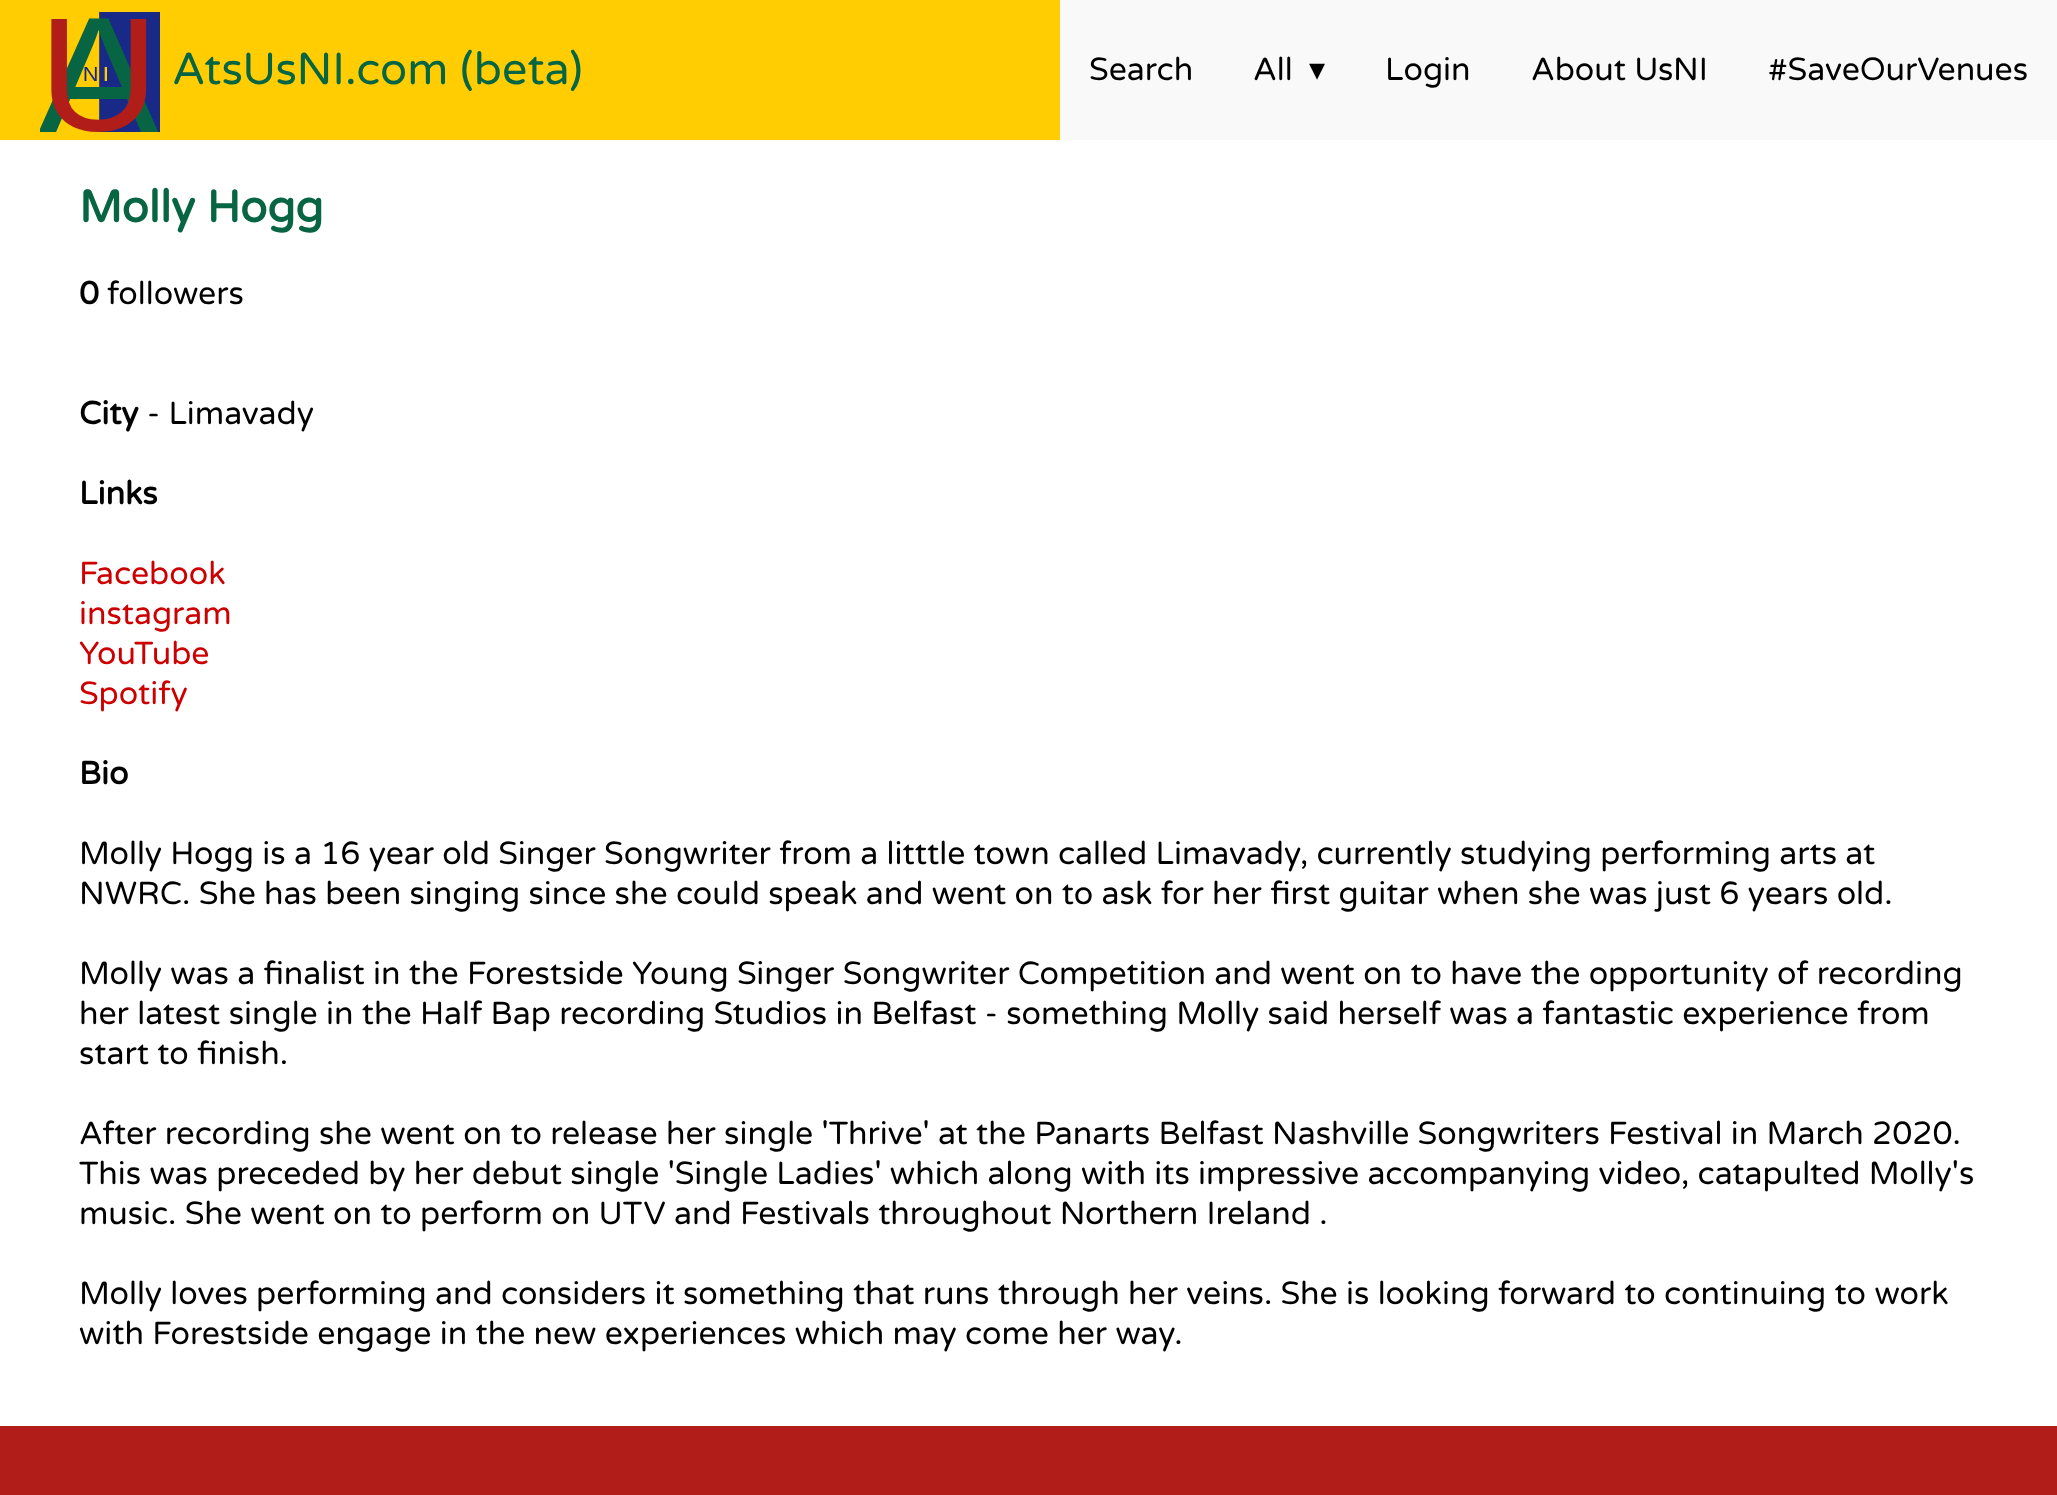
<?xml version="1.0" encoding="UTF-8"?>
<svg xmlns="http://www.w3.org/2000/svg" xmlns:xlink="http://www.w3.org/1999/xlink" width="2057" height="1495">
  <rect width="100%" height="100%" fill="#ffffff" />
  <rect width="1060" height="140" fill="#ffcd01" />
  <image x="40" y="12" width="120" height="120" xlink:href="image1.png" />
  <rect x="1060" width="997" height="140" fill="#f9f9f9" />
  <rect y="1426" width="2057" height="69" fill="#b11e1a" />
  <text x="172" y="84" style="font-family: Varela Round; font-size: 44.75px; fill: #076543">AtsUsNI.com (beta)</text>
  <text x="1089" y="80" style="font-family: Varela Round; font-size: 32px; fill: #000000">Search</text>
  <text x="1253" y="80" style="font-family: Varela Round; font-size: 32px; fill: #000000">All</text>
  <text x="1309" y="80" style="font-family: DejaVu Sans; font-size: 32px; fill: #000000">▾</text>
  <text x="1385" y="80" style="font-family: Varela Round; font-size: 32px; fill: #000000">Login</text>
  <text x="1531" y="80" style="font-family: Varela Round; font-size: 32px; fill: #000000">About UsNI</text>
  <text x="1768" y="80" style="font-family: Varela Round; font-size: 32px; fill: #000000">#SaveOurVenues</text>
  <text x="79" y="222" style="font-family: Varela Round; font-size: 44.75px; font-weight: bold; fill: #076543">Molly Hogg</text>
  <text x="79" y="304" style="font-family: Varela Round; font-size: 32px; font-weight: bold; fill: #000000">0</text>
  <text x="107" y="304" style="font-family: Varela Round; font-size: 32px; fill: #000000">followers</text>
  <text x="79" y="424" style="font-family: Varela Round; font-size: 32px; font-weight: bold; fill: #000000">City</text>
  <text x="147" y="424" style="font-family: Varela Round; font-size: 32px; fill: #000000">- Limavady</text>
  <text x="79" y="504" style="font-family: Varela Round; font-size: 32px; font-weight: bold; fill: #000000">Links</text>
  <text x="79" y="584" style="font-family: Varela Round; font-size: 32px; fill: #cd0001">Facebook</text>
  <text x="79" y="624" style="font-family: Varela Round; font-size: 32px; fill: #cd0001">instagram</text>
  <text x="79" y="664" style="font-family: Varela Round; font-size: 32px; fill: #cd0001">YouTube</text>
  <text x="79" y="704" style="font-family: Varela Round; font-size: 32px; fill: #cd0001">Spotify</text>
  <text x="79" y="784" style="font-family: Varela Round; font-size: 32px; font-weight: bold; fill: #000000">Bio</text>
  <text x="79" y="864" style="font-family: Varela Round; font-size: 32px; fill: #000000">Molly Hogg is a 16 year old Singer Songwriter from a litttle town called Limavady, currently studying performing arts at</text>
  <text x="79" y="904" style="font-family: Varela Round; font-size: 32px; fill: #000000">NWRC. She has been singing since she could speak and went on to ask for her first guitar when she was just 6 years old.</text>
  <text x="79" y="984" style="font-family: Varela Round; font-size: 32px; fill: #000000">Molly was a finalist in the Forestside Young Singer Songwriter Competition and went on to have the opportunity of recording</text>
  <text x="79" y="1024" style="font-family: Varela Round; font-size: 32px; fill: #000000">her latest single in the Half Bap recording Studios in Belfast - something Molly said herself was a fantastic experience from</text>
  <text x="79" y="1064" style="font-family: Varela Round; font-size: 32px; fill: #000000">start to finish.</text>
  <text x="79" y="1144" style="font-family: Varela Round; font-size: 32px; fill: #000000">After recording she went on to release her single 'Thrive' at the Panarts Belfast Nashville Songwriters Festival in March 2020.</text>
  <text x="79" y="1184" style="font-family: Varela Round; font-size: 32px; fill: #000000">This was preceded by her debut single 'Single Ladies' which along with its impressive accompanying video, catapulted Molly's</text>
  <text x="79" y="1224" style="font-family: Varela Round; font-size: 32px; fill: #000000">music. She went on to perform on UTV and Festivals throughout Northern Ireland .</text>
  <text x="79" y="1304" style="font-family: Varela Round; font-size: 32px; fill: #000000">Molly loves performing and considers it something that runs through her veins. She is looking forward to continuing to work</text>
  <text x="79" y="1344" style="font-family: Varela Round; font-size: 32px; fill: #000000">with Forestside engage in the new experiences which may come her way.</text>
</svg>
